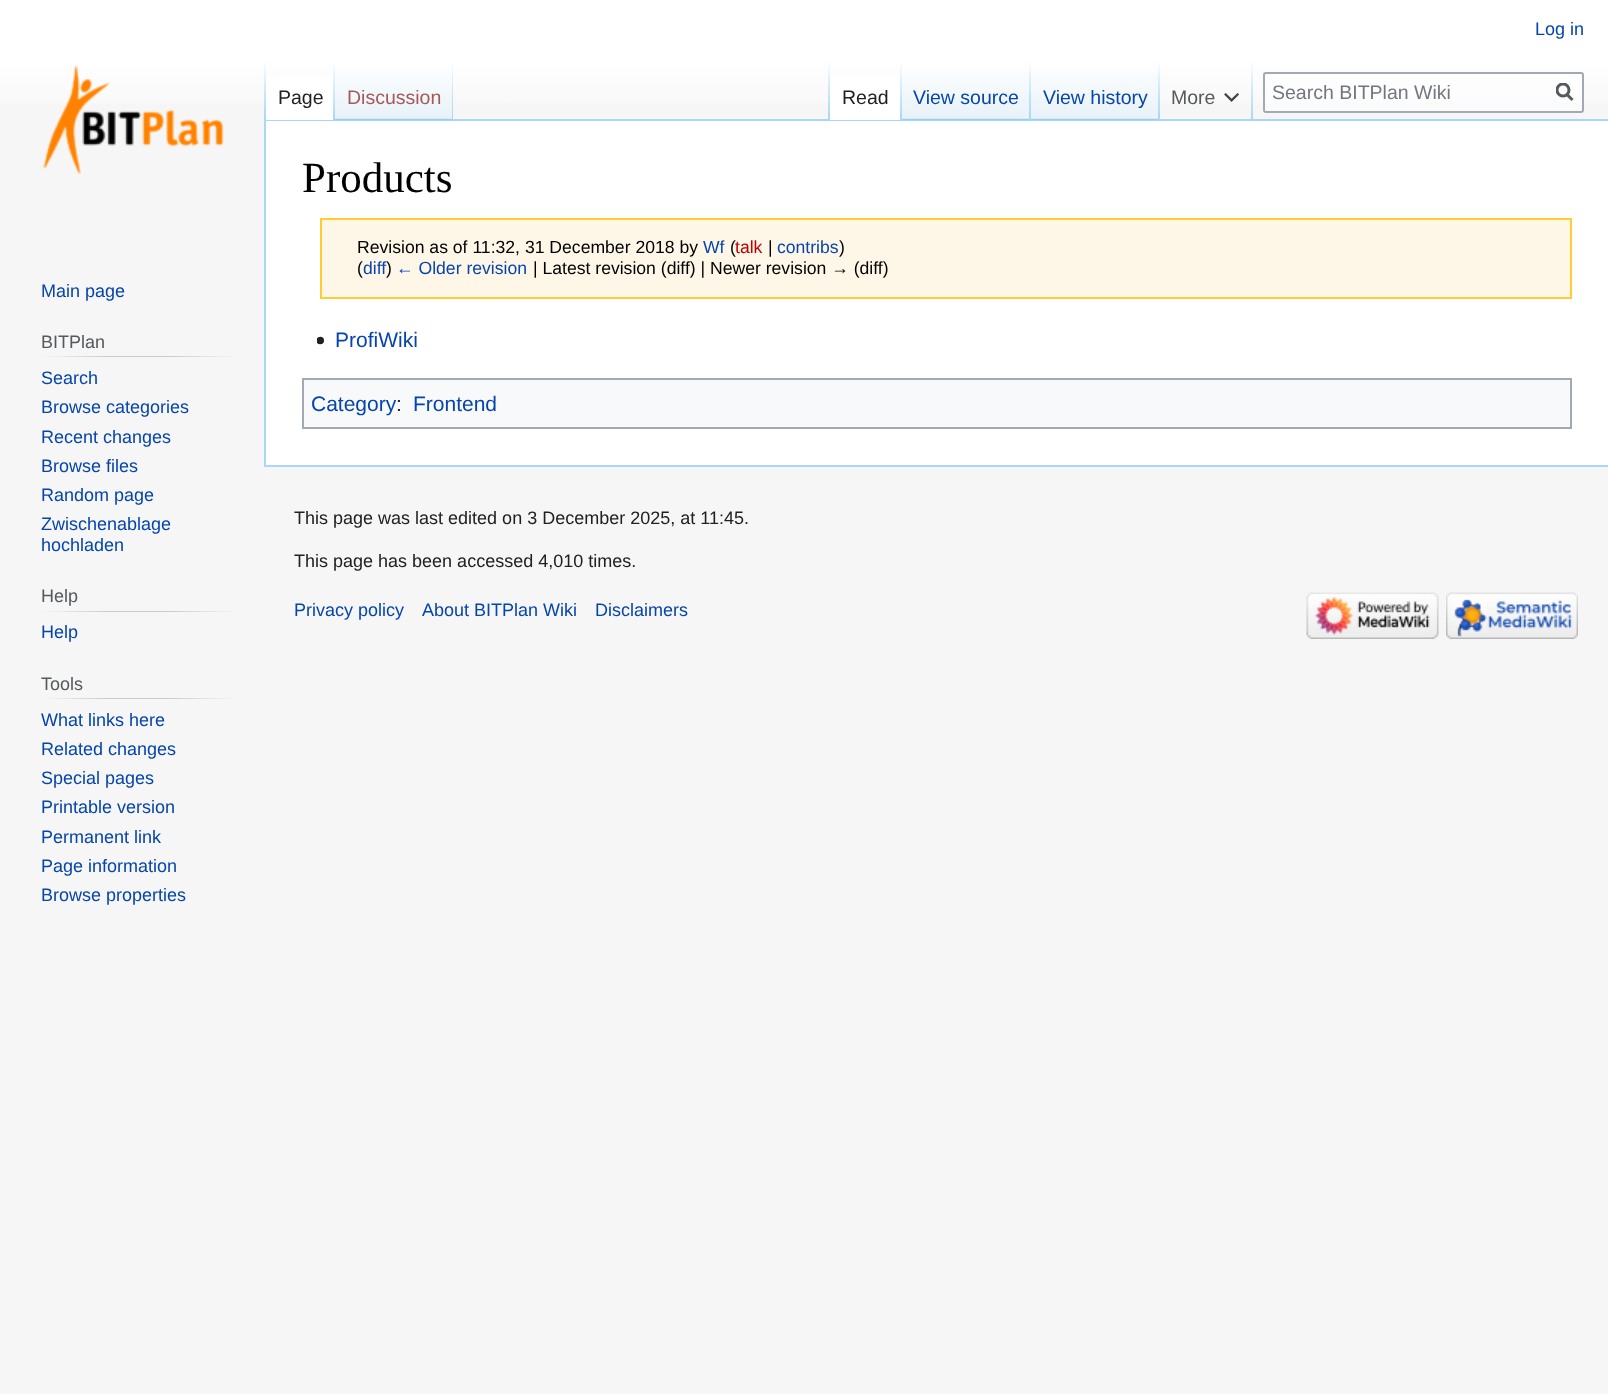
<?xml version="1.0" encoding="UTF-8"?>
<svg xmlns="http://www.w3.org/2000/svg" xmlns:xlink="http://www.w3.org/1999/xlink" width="1608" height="1394">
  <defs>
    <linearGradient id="g1" gradientUnits="userSpaceOnUse" x1="804" y1="0" x2="804" y2="120"><stop offset="0.5" stop-color="#ffffff" /><stop offset="1" stop-color="#f6f6f6" /></linearGradient>
    <linearGradient id="g2" gradientUnits="userSpaceOnUse" x1="265" y1="60" x2="265" y2="120"><stop offset="0" stop-color="#a7d7f9" stop-opacity="0" /><stop offset="1" stop-color="#a7d7f9" /></linearGradient>
    <linearGradient id="g3" gradientUnits="userSpaceOnUse" x1="334" y1="60" x2="334" y2="120"><stop offset="0" stop-color="#ffffff" /><stop offset="1" stop-color="#a7d7f9" /></linearGradient>
    <linearGradient id="g4" gradientUnits="userSpaceOnUse" x1="394" y1="120" x2="394" y2="60"><stop offset="0" stop-color="#77c1f6" /><stop offset="0.03" stop-color="#e8f2f8" /><stop offset="1" stop-color="#ffffff" /></linearGradient>
    <linearGradient id="g5" gradientUnits="userSpaceOnUse" x1="452" y1="60" x2="452" y2="120"><stop offset="0" stop-color="#a7d7f9" stop-opacity="0" /><stop offset="1" stop-color="#a7d7f9" /></linearGradient>
    <linearGradient id="g6" gradientUnits="userSpaceOnUse" x1="829" y1="60" x2="829" y2="120"><stop offset="0" stop-color="#a7d7f9" stop-opacity="0" /><stop offset="1" stop-color="#a7d7f9" /></linearGradient>
    <linearGradient id="g7" gradientUnits="userSpaceOnUse" x1="901" y1="60" x2="901" y2="120"><stop offset="0" stop-color="#ffffff" /><stop offset="1" stop-color="#a7d7f9" /></linearGradient>
    <linearGradient id="g8" gradientUnits="userSpaceOnUse" x1="966" y1="120" x2="966" y2="60"><stop offset="0" stop-color="#77c1f6" /><stop offset="0.03" stop-color="#e8f2f8" /><stop offset="1" stop-color="#ffffff" /></linearGradient>
    <linearGradient id="g9" gradientUnits="userSpaceOnUse" x1="1030" y1="60" x2="1030" y2="120"><stop offset="0" stop-color="#a7d7f9" stop-opacity="0" /><stop offset="1" stop-color="#a7d7f9" /></linearGradient>
    <linearGradient id="g10" gradientUnits="userSpaceOnUse" x1="1095" y1="120" x2="1095" y2="60"><stop offset="0" stop-color="#77c1f6" /><stop offset="0.03" stop-color="#e8f2f8" /><stop offset="1" stop-color="#ffffff" /></linearGradient>
    <linearGradient id="g11" gradientUnits="userSpaceOnUse" x1="1159" y1="60" x2="1159" y2="120"><stop offset="0" stop-color="#a7d7f9" stop-opacity="0" /><stop offset="1" stop-color="#a7d7f9" /></linearGradient>
    <linearGradient id="g12" gradientUnits="userSpaceOnUse" x1="1252" y1="60" x2="1252" y2="120"><stop offset="0" stop-color="#a7d7f9" stop-opacity="0" /><stop offset="1" stop-color="#a7d7f9" /></linearGradient>
    <clipPath id="clip1"><rect x="1556" y="83" width="18" height="19" /></clipPath>
    <linearGradient id="g13" gradientUnits="userSpaceOnUse" x1="41" y1="356" x2="237" y2="356"><stop offset="0" stop-color="#f6f6f6" /><stop offset="0.33" stop-color="#c8ccd1" /><stop offset="0.66" stop-color="#c8ccd1" /><stop offset="1" stop-color="#f6f6f6" /></linearGradient>
    <linearGradient id="g14" gradientUnits="userSpaceOnUse" x1="41" y1="611" x2="237" y2="611"><stop offset="0" stop-color="#f6f6f6" /><stop offset="0.33" stop-color="#c8ccd1" /><stop offset="0.66" stop-color="#c8ccd1" /><stop offset="1" stop-color="#f6f6f6" /></linearGradient>
    <linearGradient id="g15" gradientUnits="userSpaceOnUse" x1="41" y1="698" x2="237" y2="698"><stop offset="0" stop-color="#f6f6f6" /><stop offset="0.33" stop-color="#c8ccd1" /><stop offset="0.66" stop-color="#c8ccd1" /><stop offset="1" stop-color="#f6f6f6" /></linearGradient>
  </defs>
  <rect width="100%" height="100%" fill="#f6f6f6" />
  <rect width="1608" height="103" fill="url(#g1)" />
  <rect x="264" y="119" width="1344" height="2" fill="#a7d7f9" />
  <rect x="264" y="465" width="1344" height="2" fill="#a7d7f9" />
  <rect x="264" y="119" width="2" height="348" fill="#a7d7f9" />
  <rect x="264" y="60" width="2" height="60" fill="url(#g2)" />
  <rect x="266" y="77" width="67" height="43" fill="#ffffff" />
  <rect x="333" y="60" width="2" height="60" fill="url(#g3)" />
  <rect x="335" y="69" width="118" height="51" fill="url(#g4)" />
  <rect x="452" y="60" width="1" height="60" fill="url(#g5)" />
  <rect x="828" y="60" width="2" height="60" fill="url(#g6)" />
  <rect x="830" y="77" width="70" height="43" fill="#ffffff" />
  <rect x="900" y="60" width="2" height="60" fill="url(#g7)" />
  <rect x="902" y="69" width="129" height="51" fill="url(#g8)" />
  <rect x="1029" y="60" width="2" height="60" fill="url(#g9)" />
  <rect x="1031" y="69" width="129" height="51" fill="url(#g10)" />
  <rect x="1158" y="60" width="2" height="60" fill="url(#g11)" />
  <rect x="1251" y="60" width="2" height="60" fill="url(#g12)" />
  <image x="1224" y="93" width="15" height="9" xlink:href="image1.png" />
  <rect x="1264" y="73" width="319" height="39" rx="2" fill="#ffffff" fill-opacity="0.5" stroke="#a2a9b1" stroke-width="2" />
  <path d="M 1572.5 100 l -6 -6" fill="none" stroke="#54595d" stroke-width="3" />
  <g clip-path="url(#clip1)">
    <circle cx="1563" cy="90" r="6" fill="none" stroke="#54595d" stroke-width="3" />
  </g>
  <image x="43" y="65" width="181" height="110" xlink:href="image2.png" />
  <rect x="41" y="356" width="196" height="1" fill="url(#g13)" />
  <rect x="41" y="611" width="196" height="1" fill="url(#g14)" />
  <rect x="41" y="698" width="196" height="1" fill="url(#g15)" />
  <rect x="266" y="121" width="1342" height="344" fill="#ffffff" />
  <rect x="321" y="219" width="1250" height="79" fill="#fef6e7" stroke="#ffcc33" stroke-width="2" />
  <image x="317" y="336" width="7" height="9" xlink:href="image3.png" />
  <rect x="303" y="379" width="1268" height="49" fill="#f8f9fa" stroke="#a2a9b1" stroke-width="2" />
  <image x="1306" y="592" width="133" height="47" xlink:href="image4.png" />
  <image x="1446" y="592" width="132" height="47" xlink:href="image5.png" />
  <text x="1535" y="35" style="font-family: Liberation Sans; font-size: 18px; fill: #0645ad">Log in</text>
  <text x="278" y="104" style="font-family: Liberation Sans; font-size: 19.5px; fill: #202122">Page</text>
  <text x="347" y="104" style="font-family: Liberation Sans; font-size: 19.5px; fill: #a55858">Discussion</text>
  <text x="842" y="104" style="font-family: Liberation Sans; font-size: 19.5px; fill: #202122">Read</text>
  <text x="913" y="104" style="font-family: Liberation Sans; font-size: 19.5px; fill: #0645ad">View source</text>
  <text x="1043" y="104" style="font-family: Liberation Sans; font-size: 19.5px; fill: #0645ad">View history</text>
  <text x="1171" y="104" style="font-family: Liberation Sans; font-size: 19.5px; fill: #54595d">More</text>
  <text x="1272" y="99" style="font-family: Liberation Sans; font-size: 19.5px; fill: #72777d">Search BITPlan Wiki</text>
  <text x="41" y="297" style="font-family: Liberation Sans; font-size: 18px; fill: #0645ad">Main page</text>
  <text x="41" y="348" style="font-family: Liberation Sans; font-size: 18px; fill: #54595d">BITPlan</text>
  <text x="41" y="384" style="font-family: Liberation Sans; font-size: 18px; fill: #0645ad">Search</text>
  <text x="41" y="413" style="font-family: Liberation Sans; font-size: 18px; fill: #0645ad">Browse categories</text>
  <text x="41" y="443" style="font-family: Liberation Sans; font-size: 18px; fill: #0645ad">Recent changes</text>
  <text x="41" y="472" style="font-family: Liberation Sans; font-size: 18px; fill: #0645ad">Browse files</text>
  <text x="41" y="501" style="font-family: Liberation Sans; font-size: 18px; fill: #0645ad">Random page</text>
  <text x="41" y="530" style="font-family: Liberation Sans; font-size: 18px; fill: #0645ad">Zwischenablage</text>
  <text x="41" y="551" style="font-family: Liberation Sans; font-size: 18px; fill: #0645ad">hochladen</text>
  <text x="41" y="602" style="font-family: Liberation Sans; font-size: 18px; fill: #54595d">Help</text>
  <text x="41" y="638" style="font-family: Liberation Sans; font-size: 18px; fill: #0645ad">Help</text>
  <text x="41" y="690" style="font-family: Liberation Sans; font-size: 18px; fill: #54595d">Tools</text>
  <text x="41" y="726" style="font-family: Liberation Sans; font-size: 18px; fill: #0645ad">What links here</text>
  <text x="41" y="755" style="font-family: Liberation Sans; font-size: 18px; fill: #0645ad">Related changes</text>
  <text x="41" y="784" style="font-family: Liberation Sans; font-size: 18px; fill: #0645ad">Special pages</text>
  <text x="41" y="813" style="font-family: Liberation Sans; font-size: 18px; fill: #0645ad">Printable version</text>
  <text x="41" y="843" style="font-family: Liberation Sans; font-size: 18px; fill: #0645ad">Permanent link</text>
  <text x="41" y="872" style="font-family: Liberation Sans; font-size: 18px; fill: #0645ad">Page information</text>
  <text x="41" y="901" style="font-family: Liberation Sans; font-size: 18px; fill: #0645ad">Browse properties</text>
  <text x="302" y="192" style="font-family: Liberation Serif; font-size: 43px; fill: #000000">Products</text>
  <text x="357" y="253" style="font-family: Liberation Sans; font-size: 17.6px; fill: #000000">Revision as of 11:32, 31 December 2018 by</text>
  <text x="703" y="253" style="font-family: Liberation Sans; font-size: 17.6px; fill: #0645ad">Wf</text>
  <text x="730" y="253" style="font-family: Liberation Sans; font-size: 17.6px; fill: #000000">(</text>
  <text x="735" y="253" style="font-family: Liberation Sans; font-size: 17.6px; fill: #ba0000">talk</text>
  <text x="768" y="253" style="font-family: Liberation Sans; font-size: 17.6px; fill: #000000">|</text>
  <text x="777" y="253" style="font-family: Liberation Sans; font-size: 17.6px; fill: #0645ad">contribs</text>
  <text x="839" y="253" style="font-family: Liberation Sans; font-size: 17.6px; fill: #000000">)</text>
  <text x="357" y="274" style="font-family: Liberation Sans; font-size: 17.6px; fill: #000000">(</text>
  <text x="363" y="274" style="font-family: Liberation Sans; font-size: 17.6px; fill: #0645ad">diff</text>
  <text x="386" y="274" style="font-family: Liberation Sans; font-size: 17.6px; fill: #000000">)</text>
  <text x="396" y="274" style="font-family: Liberation Sans; font-size: 17.6px; fill: #0645ad">← Older revision</text>
  <text x="533" y="274" style="font-family: Liberation Sans; font-size: 17.6px; fill: #000000">| Latest revision (diff) | Newer revision → (diff)</text>
  <text x="335" y="347" style="font-family: Liberation Sans; font-size: 21px; fill: #0645ad">ProfiWiki</text>
  <text x="311" y="411" style="font-family: Liberation Sans; font-size: 21px; fill: #0645ad">Category</text>
  <text x="396" y="411" style="font-family: Liberation Sans; font-size: 21px; fill: #202122">:</text>
  <text x="413" y="411" style="font-family: Liberation Sans; font-size: 21px; fill: #0645ad">Frontend</text>
  <text x="294" y="524" style="font-family: Liberation Sans; font-size: 18px; fill: #202122">This page was last edited on 3 December 2025, at 11:45.</text>
  <text x="294" y="567" style="font-family: Liberation Sans; font-size: 18px; fill: #202122">This page has been accessed 4,010 times.</text>
  <text x="294" y="616" style="font-family: Liberation Sans; font-size: 18px; fill: #0645ad">Privacy policy</text>
  <text x="422" y="616" style="font-family: Liberation Sans; font-size: 18px; fill: #0645ad">About BITPlan Wiki</text>
  <text x="595" y="616" style="font-family: Liberation Sans; font-size: 18px; fill: #0645ad">Disclaimers</text>
</svg>
